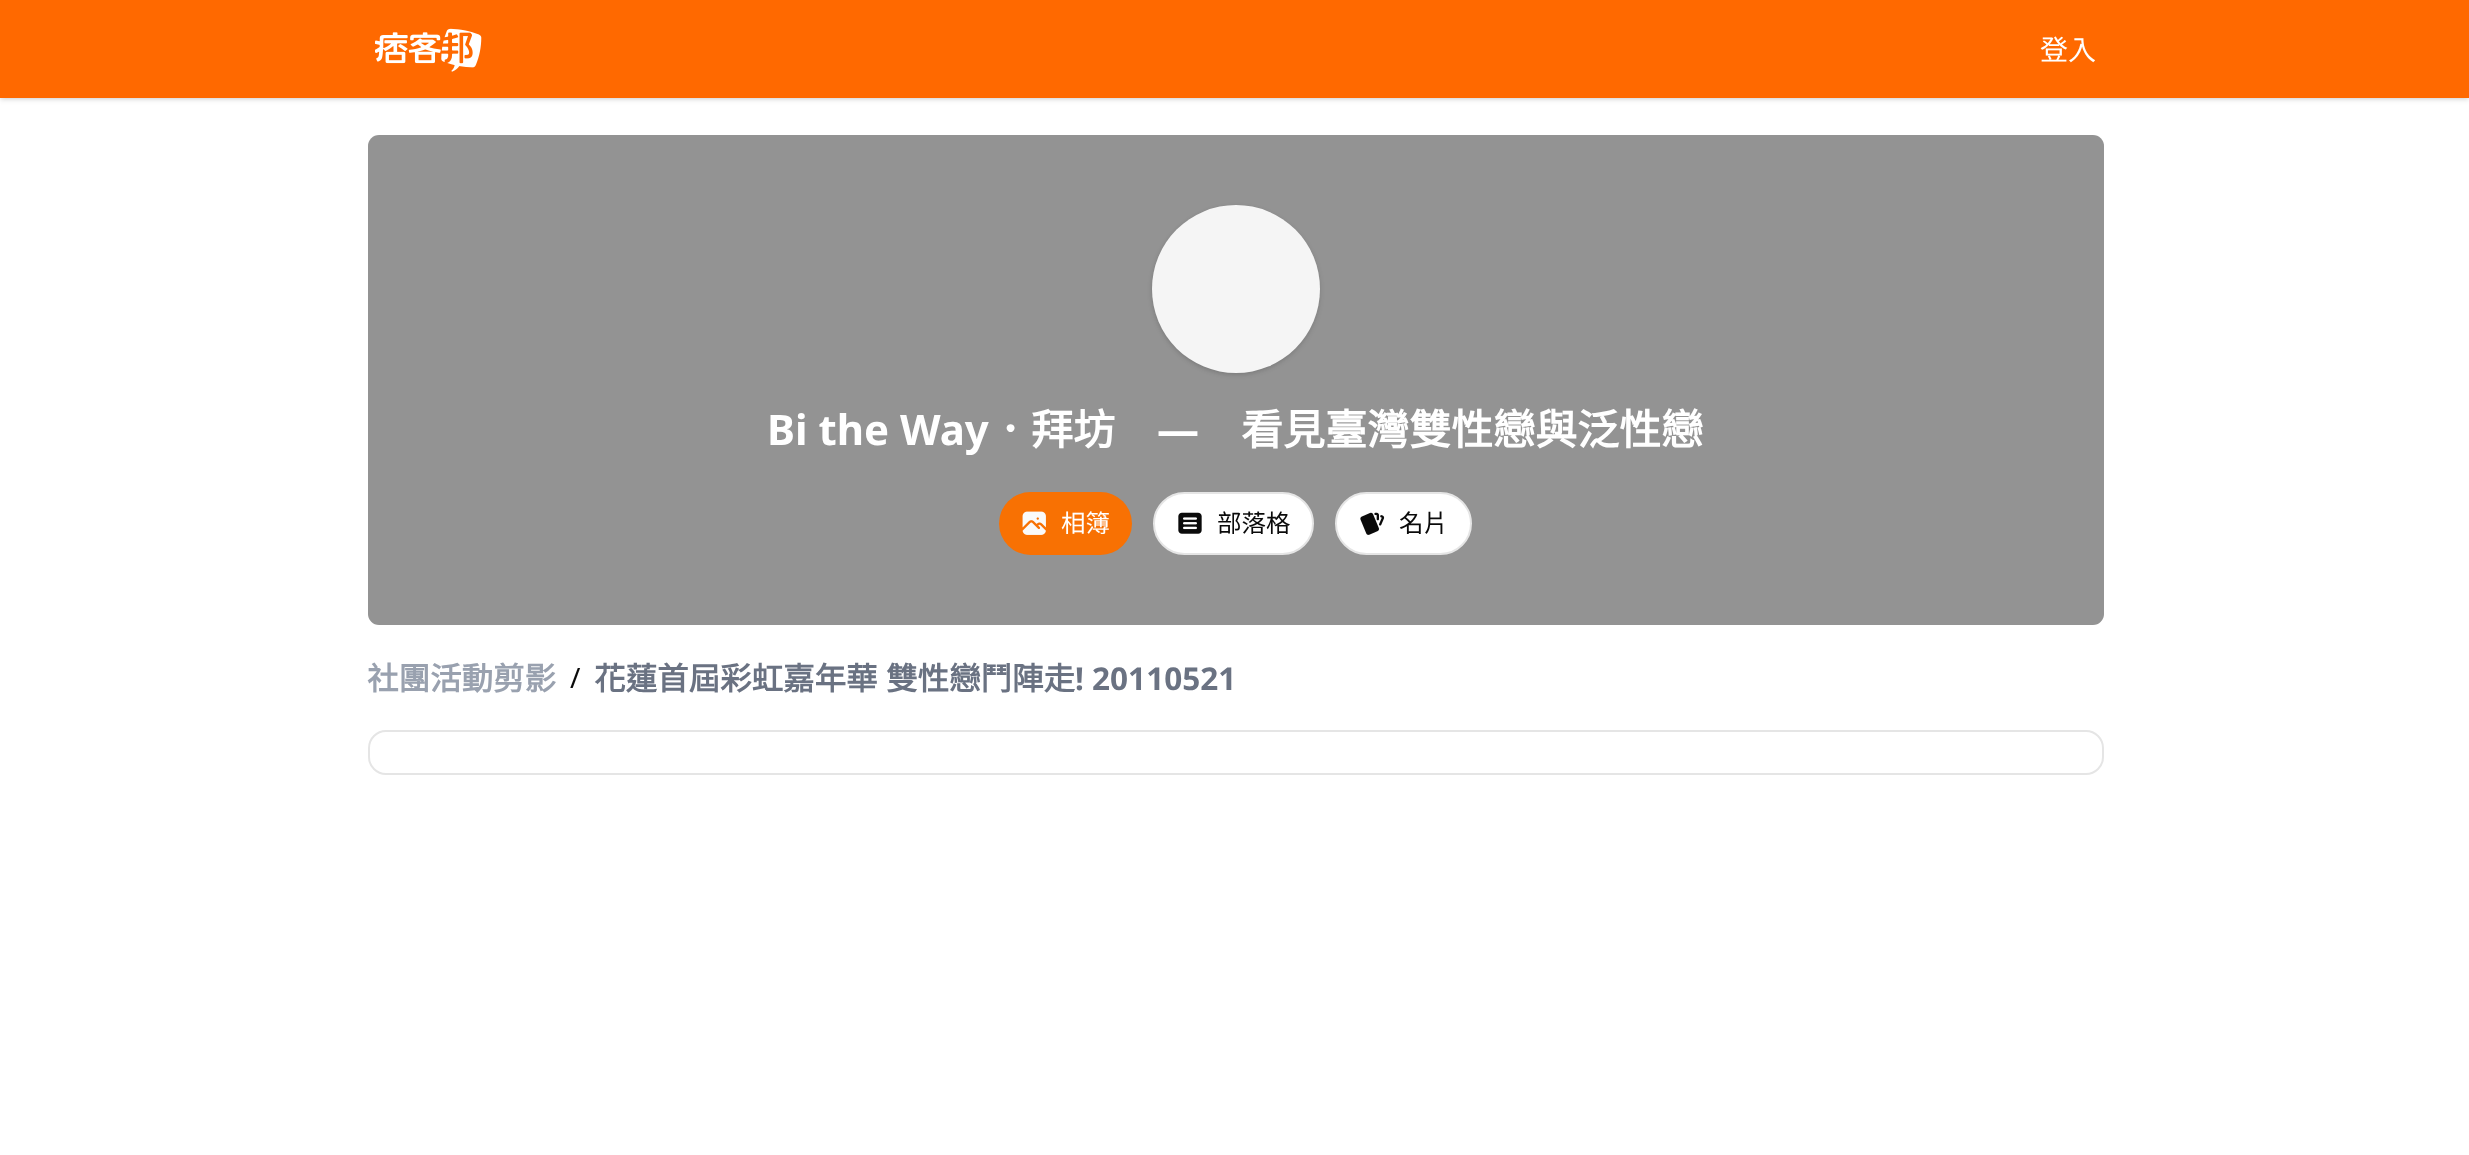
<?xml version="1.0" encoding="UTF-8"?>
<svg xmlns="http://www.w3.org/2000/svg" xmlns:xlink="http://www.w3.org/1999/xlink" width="2469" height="1155">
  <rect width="100%" height="100%" fill="#ffffff" />
  <rect x="2" y="4" width="2466" height="94" fill="#000000" fill-opacity="0.1" filter="blur(2px)" />
  <rect y="2" width="2469" height="98" fill="#000000" fill-opacity="0.1" filter="blur(2.5px)" />
  <rect width="2469" height="98" fill="#ff6900" />
  <image x="375" y="28" width="107" height="44" xlink:href="image1.png" />
  <rect x="368" y="135" width="1736" height="490" rx="11" fill="#f5f5f5" />
  <rect x="368" y="135" width="1736" height="490" rx="11" fill="#000000" fill-opacity="0.4" />
  <rect x="1153" y="208" width="165" height="165" rx="82.5" fill="#000000" fill-opacity="0.1" filter="blur(2px)" />
  <rect x="1152" y="207" width="168" height="168" rx="84" fill="#000000" fill-opacity="0.1" filter="blur(2.5px)" />
  <circle cx="1236" cy="289" r="84" fill="#f5f5f5" />
  <rect x="999" y="492" width="133" height="63" rx="31.5" fill="#f87103" />
  <image x="1022" y="511" width="24" height="24" xlink:href="image2.png" />
  <rect x="1154" y="493" width="159" height="61" rx="30.5" fill="#ffffff" stroke="#e5e5e5" stroke-width="2" />
  <image x="1178" y="512" width="24" height="22" xlink:href="image3.png" />
  <rect x="1336" y="493" width="135" height="61" rx="30.5" fill="#ffffff" stroke="#e5e5e5" stroke-width="2" />
  <image x="1360" y="512" width="25" height="23" xlink:href="image4.png" />
  <rect x="369" y="731" width="1734" height="43" rx="17" fill="none" stroke="#e5e5e5" stroke-width="2" />
  <text x="2040" y="60" style="font-family: Noto Sans CJK TC; font-size: 28px; fill: #ffffff">登入</text>
  <text x="767" y="445" style="font-family: Noto Sans; font-size: 42px; font-weight: bold; fill: #ffffff">Bi the Way</text>
  <text x="989" y="445" style="font-family: Noto Sans CJK TC; font-size: 42px; font-weight: bold; fill: #ffffff">．拜坊</text>
  <text x="1157" y="445" style="font-family: Noto Sans; font-size: 42px; font-weight: bold; fill: #ffffff">—</text>
  <text x="1241" y="445" style="font-family: Noto Sans CJK TC; font-size: 42px; font-weight: bold; fill: #ffffff">看見臺灣雙性戀與泛性戀</text>
  <text x="1061" y="532" style="font-family: Noto Sans CJK TC; font-size: 24.5px; fill: #ffffff">相簿</text>
  <text x="1217" y="532" style="font-family: Noto Sans CJK TC; font-size: 24.5px; fill: #0a0a0a">部落格</text>
  <text x="1399" y="532" style="font-family: Noto Sans CJK TC; font-size: 24.5px; fill: #0a0a0a">名片</text>
  <text x="367" y="690" style="font-family: Noto Sans CJK TC; font-size: 31.5px; font-weight: bold; fill: #99a1af">社團活動剪影</text>
  <text x="570" y="688" style="font-family: Noto Sans; font-size: 28px; fill: #0a0a0a">/</text>
  <text x="594" y="690" style="font-family: Noto Sans CJK TC; font-size: 31.5px; font-weight: bold; fill: #6a7282">花蓮首屆彩虹嘉年華</text>
  <text x="886" y="690" style="font-family: Noto Sans CJK TC; font-size: 31.5px; font-weight: bold; fill: #6a7282">雙性戀鬥陣走</text>
  <text x="1075" y="690" style="font-family: Noto Sans; font-size: 31.5px; font-weight: bold; fill: #6a7282">! 20110521</text>
</svg>
